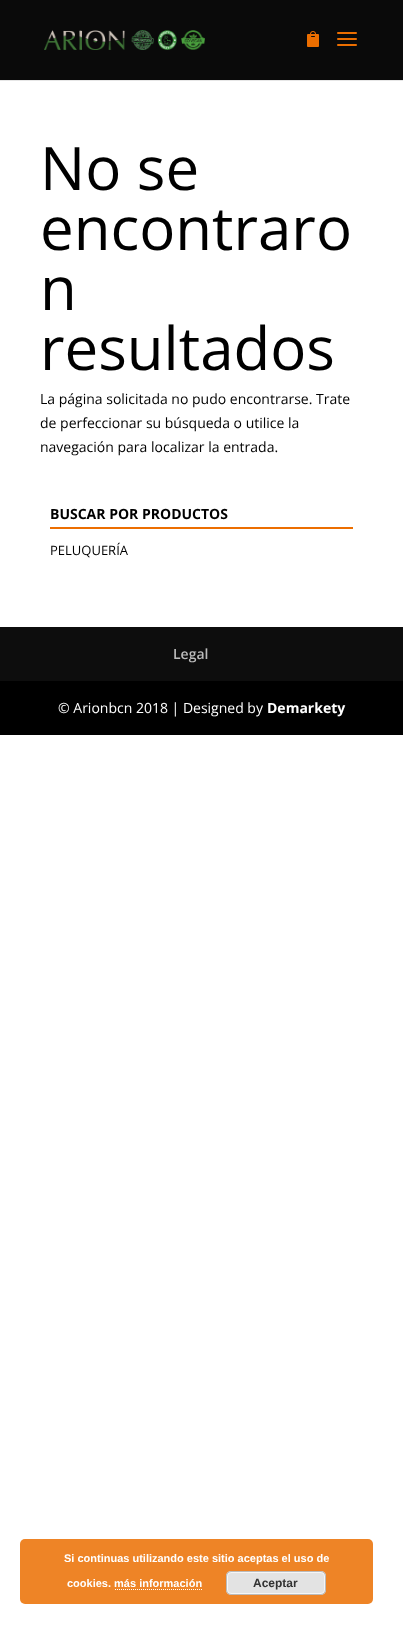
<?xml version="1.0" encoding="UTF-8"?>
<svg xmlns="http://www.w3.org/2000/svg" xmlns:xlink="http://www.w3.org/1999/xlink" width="403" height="1634">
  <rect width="100%" height="100%" fill="#ffffff" />
  <rect y="80" width="403" height="1" fill="#e6e6e6" />
  <rect width="403" height="80" fill="#0a0a0a" />
  <image x="44" y="30" width="161" height="20" xlink:href="image1.png" />
  <image x="307" y="31" width="12" height="16" xlink:href="image2.png" />
  <image x="337" y="32" width="20" height="14" xlink:href="image3.png" />
  <rect x="50" y="527" width="303" height="2" fill="#ec6e00" />
  <rect y="681" width="403" height="54" fill="#000000" />
  <rect y="627" width="403" height="54" fill="#0d0d0d" />
  <rect x="20" y="1539" width="353" height="65" rx="5" fill="#ee8426" />
  <rect x="226" y="1571" width="100" height="24" rx="5" fill="#e3e3e3" />
  <rect x="227.5" y="1572.5" width="97" height="21" rx="3.5" fill="none" stroke="#f6f6f6" />
  <rect x="226.5" y="1571.5" width="99" height="23" rx="4.5" fill="none" stroke="#bbbbbb" />
  <path d="M 115 1589.5 h 88" fill="none" stroke="#ffffff" stroke-dasharray="1 1" />
  <text x="40" y="190" style="font-family: Open Sans; font-size: 60px; fill: #000000">No se</text>
  <text x="40" y="250" style="font-family: Open Sans; font-size: 60px; fill: #000000">encontraro</text>
  <text x="40" y="310" style="font-family: Open Sans; font-size: 60px; fill: #000000">n</text>
  <text x="40" y="370" style="font-family: Open Sans; font-size: 60px; fill: #000000">resultados</text>
  <text x="40" y="404" style="font-family: Open Sans; font-size: 14px; fill: #000000">La página solicitada no pudo encontrarse. Trate</text>
  <text x="40" y="428" style="font-family: Open Sans; font-size: 14px; fill: #000000">de perfeccionar su búsqueda o utilice la</text>
  <text x="40" y="452" style="font-family: Open Sans; font-size: 14px; fill: #000000">navegación para localizar la entrada.</text>
  <text x="50" y="519" style="font-family: Open Sans; font-size: 14px; font-weight: bold; fill: #000000">BUSCAR POR PRODUCTOS</text>
  <text x="50" y="555" style="font-family: Open Sans; font-size: 13px; fill: #000000">PELUQUERÍA</text>
  <text x="173" y="659" style="font-family: Open Sans; font-size: 14px; font-weight: 600; fill: #bbbbbb">Legal</text>
  <text x="58" y="713" style="font-family: Open Sans; font-size: 14px; fill: #ffffff">© Arionbcn 2018 | Designed by</text>
  <text x="267" y="713" style="font-family: Open Sans; font-size: 14px; font-weight: bold; fill: #ffffff">Demarkety</text>
  <text x="64" y="1562" style="font-family: Liberation Sans; font-size: 11px; font-weight: bold; fill: #ffffff">Si continuas utilizando este sitio aceptas el uso de</text>
  <text x="67" y="1587" style="font-family: Liberation Sans; font-size: 11px; font-weight: bold; fill: #ffffff">cookies. más información</text>
  <text x="253" y="1587" style="font-family: Liberation Sans; font-size: 12px; font-weight: bold; fill: #333333">Aceptar</text>
</svg>
